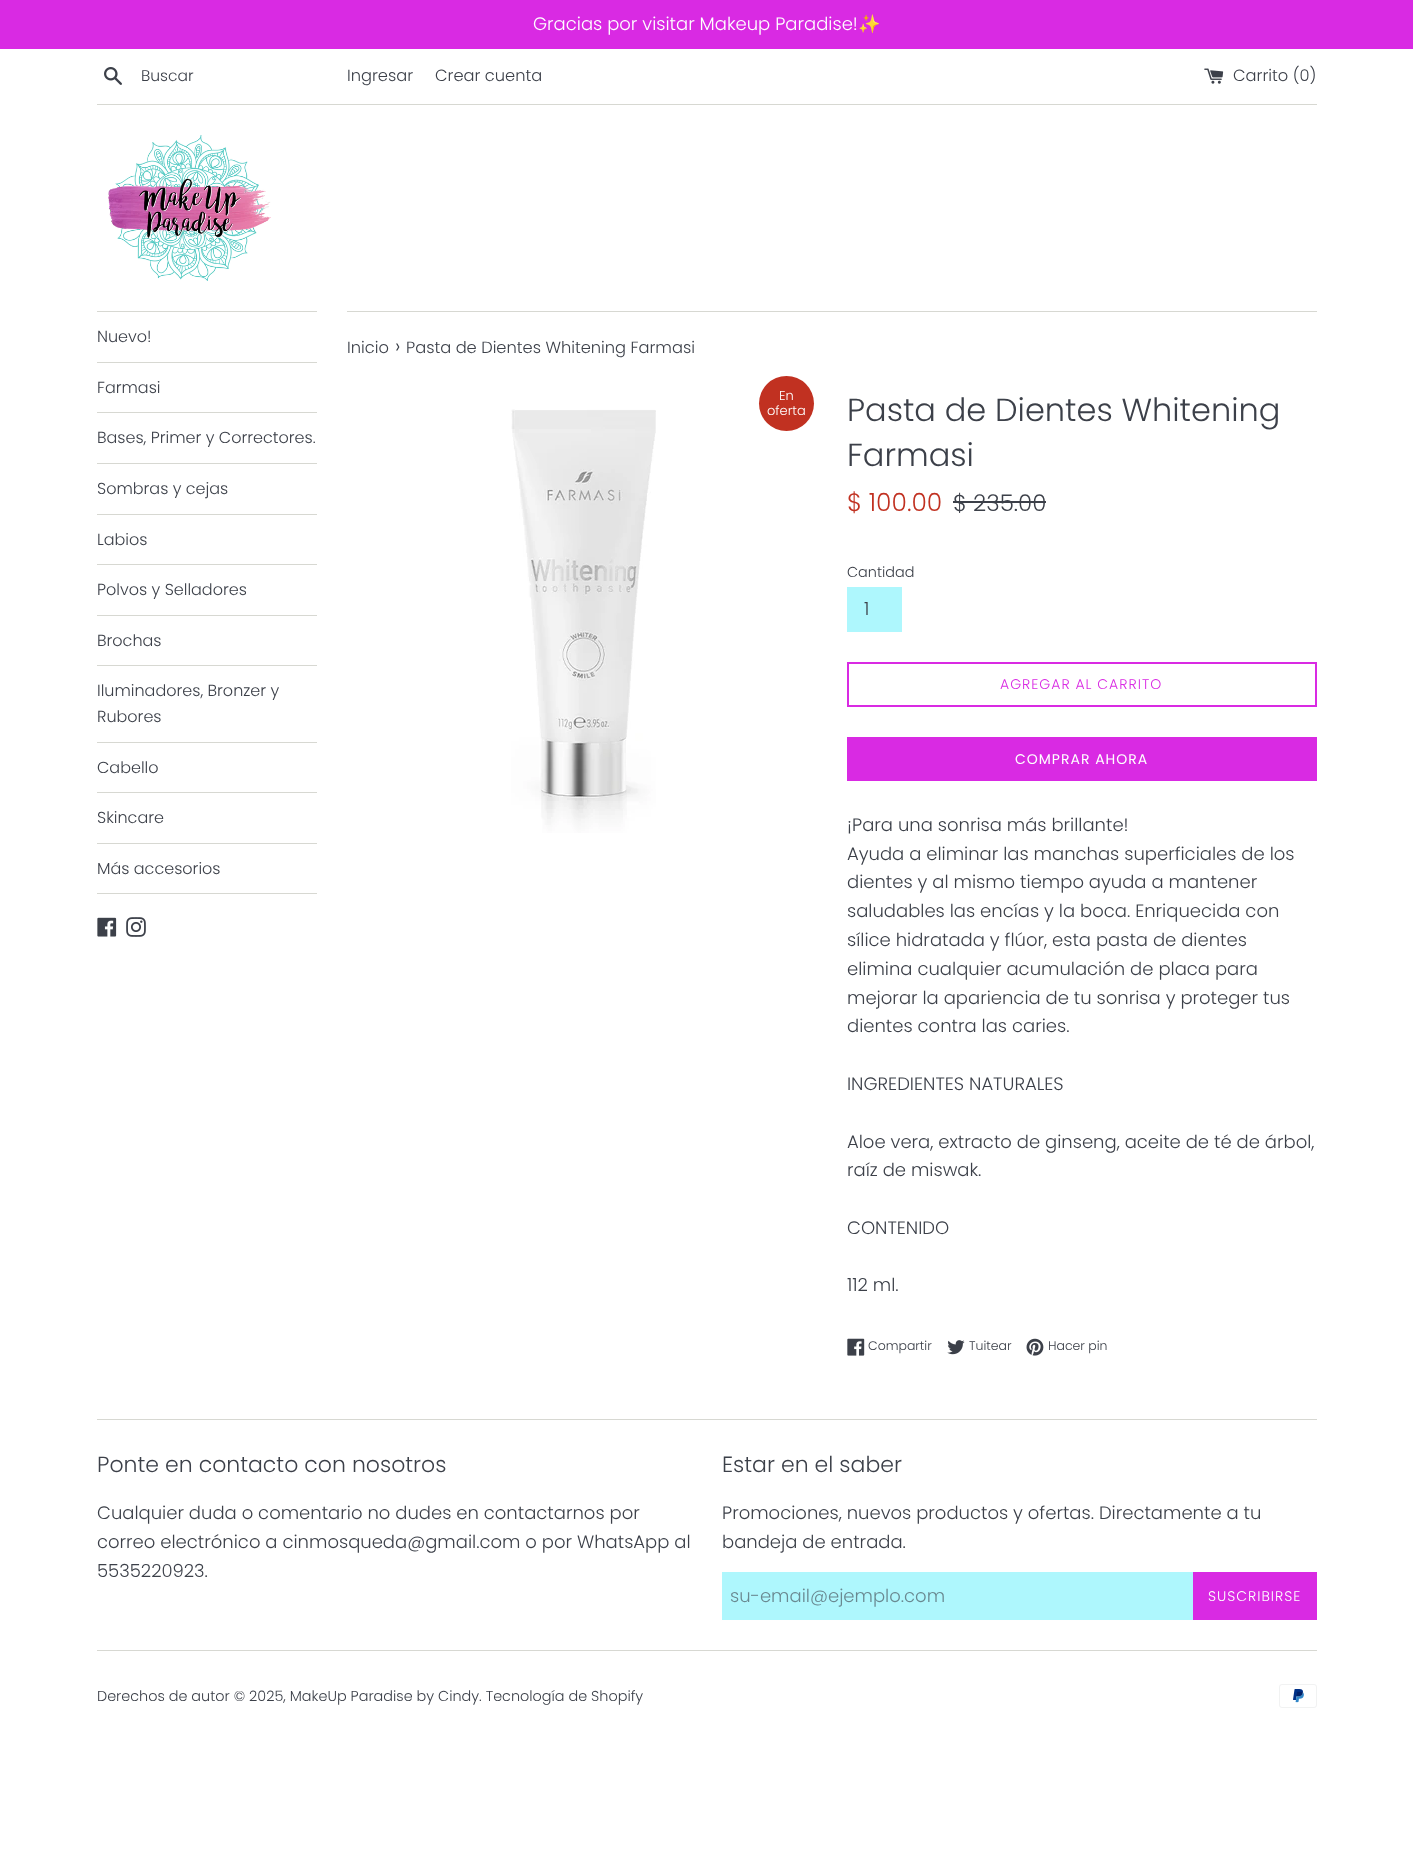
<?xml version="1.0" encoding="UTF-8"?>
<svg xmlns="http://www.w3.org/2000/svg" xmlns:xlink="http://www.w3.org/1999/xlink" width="1413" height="1865">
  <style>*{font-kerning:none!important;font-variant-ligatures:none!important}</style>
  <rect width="100%" height="100%" fill="#ffffff" />
  <rect width="1413" height="49" fill="#d92ae3" />
  <image x="104" y="67" width="18" height="18" xlink:href="image1.png" />
  <image x="1204" y="68" width="20" height="16" xlink:href="image2.png" />
  <rect x="97" y="104" width="1220" height="1" fill="#d7d8d2" />
  <image x="108" y="135" width="163" height="146" xlink:href="image3.png" />
  <rect x="97" y="311" width="220" height="1" fill="#d7d8d2" />
  <rect x="97" y="362" width="220" height="1" fill="#d7d8d2" />
  <rect x="97" y="412" width="220" height="1" fill="#d7d8d2" />
  <rect x="97" y="463" width="220" height="1" fill="#d7d8d2" />
  <rect x="97" y="514" width="220" height="1" fill="#d7d8d2" />
  <rect x="97" y="564" width="220" height="1" fill="#d7d8d2" />
  <rect x="97" y="615" width="220" height="1" fill="#d7d8d2" />
  <rect x="97" y="665" width="220" height="1" fill="#d7d8d2" />
  <rect x="97" y="742" width="220" height="1" fill="#d7d8d2" />
  <rect x="97" y="792" width="220" height="1" fill="#d7d8d2" />
  <rect x="97" y="843" width="220" height="1" fill="#d7d8d2" />
  <rect x="97" y="893" width="220" height="1" fill="#d7d8d2" />
  <image x="97" y="917" width="20" height="20" xlink:href="image4.png" />
  <image x="126" y="917" width="20" height="20" xlink:href="image5.png" />
  <rect x="347" y="311" width="970" height="1" fill="#d7d8d2" />
  <circle cx="786.5" cy="403.5" r="27.5" fill="#c13121" />
  <image x="511" y="409" width="145" height="424" xlink:href="image6.png" />
  <rect x="953" y="501" width="93" height="2" fill="#3c4049" />
  <rect x="847" y="587" width="55" height="45" fill="#aef7fd" />
  <rect x="848" y="663" width="468" height="43" fill="none" stroke="#d92ae3" stroke-width="2" />
  <rect x="847" y="737" width="470" height="44" fill="#d92ae3" />
  <image x="847" y="1338" width="18" height="18" xlink:href="image7.png" />
  <image x="947" y="1340" width="18" height="15" xlink:href="image8.png" />
  <image x="1026" y="1338" width="18" height="18" xlink:href="image9.png" />
  <rect x="97" y="1419" width="1220" height="1" fill="#d7d8d2" />
  <rect x="722" y="1572" width="471" height="48" fill="#aef7fd" />
  <rect x="1193" y="1572" width="124" height="48" fill="#d92ae3" />
  <rect x="97" y="1650" width="1220" height="1" fill="#d7d8d2" />
  <image x="1279" y="1684" width="38" height="24" xlink:href="image10.png" />
  <text x="533" y="30" style="font-family: Poppins; font-size: 18px; font-weight: 300; fill: #ffffff">Gracias por visitar Makeup Paradise!</text>
  <text x="858" y="30" style="font-family: Noto Color Emoji; font-size: 18px; fill: #ffffff">✨</text>
  <text x="141" y="81" style="font-family: Poppins; font-size: 15.5px; font-weight: 300; fill: #3c4049">Buscar</text>
  <text x="347" y="81" style="font-family: Poppins; font-size: 16.25px; font-weight: 300; fill: #3c4049">Ingresar</text>
  <text x="435" y="81" style="font-family: Poppins; font-size: 16.25px; font-weight: 300; fill: #3c4049">Crear cuenta</text>
  <text x="1233" y="81" style="font-family: Poppins; font-size: 16.25px; font-weight: 300; fill: #3c4049">Carrito (0)</text>
  <text x="97" y="342" style="font-family: Poppins; font-size: 16px; font-weight: 300; fill: #3c4049">Nuevo!</text>
  <text x="97" y="393" style="font-family: Poppins; font-size: 16px; font-weight: 300; fill: #3c4049">Farmasi</text>
  <text x="97" y="443" style="font-family: Poppins; font-size: 16px; font-weight: 300; fill: #3c4049">Bases, Primer y Correctores.</text>
  <text x="97" y="494" style="font-family: Poppins; font-size: 16px; font-weight: 300; fill: #3c4049">Sombras y cejas</text>
  <text x="97" y="545" style="font-family: Poppins; font-size: 16px; font-weight: 300; fill: #3c4049">Labios</text>
  <text x="97" y="595" style="font-family: Poppins; font-size: 16px; font-weight: 300; fill: #3c4049">Polvos y Selladores</text>
  <text x="97" y="646" style="font-family: Poppins; font-size: 16px; font-weight: 300; fill: #3c4049">Brochas</text>
  <text x="97" y="696" style="font-family: Poppins; font-size: 16px; font-weight: 300; fill: #3c4049">Iluminadores, Bronzer y</text>
  <text x="97" y="722" style="font-family: Poppins; font-size: 16px; font-weight: 300; fill: #3c4049">Rubores</text>
  <text x="97" y="773" style="font-family: Poppins; font-size: 16px; font-weight: 300; fill: #3c4049">Cabello</text>
  <text x="97" y="823" style="font-family: Poppins; font-size: 16px; font-weight: 300; fill: #3c4049">Skincare</text>
  <text x="97" y="874" style="font-family: Poppins; font-size: 16px; font-weight: 300; fill: #3c4049">Más accesorios</text>
  <text x="347" y="353" style="font-family: Poppins; font-size: 16.25px; font-weight: 300; fill: #3c4049">Inicio</text>
  <text x="395" y="353" style="font-family: Poppins; font-size: 20px; font-weight: 300; fill: #3c4049">›</text>
  <text x="406" y="353" style="font-family: Poppins; font-size: 16.25px; font-weight: 300; fill: #3c4049">Pasta de Dientes Whitening Farmasi</text>
  <text x="779" y="400" style="font-family: Poppins; font-size: 13px; font-weight: 300; fill: #ffffff">En</text>
  <text x="767" y="415" style="font-family: Poppins; font-size: 13px; font-weight: 300; fill: #ffffff">oferta</text>
  <text x="847" y="421" style="font-family: Poppins; font-size: 32px; font-weight: 300; fill: #3c4049">Pasta de Dientes Whitening</text>
  <text x="847" y="466" style="font-family: Poppins; font-size: 32px; font-weight: 300; fill: #3c4049">Farmasi</text>
  <text x="847" y="511" style="font-family: Poppins; font-size: 25px; font-weight: 300; fill: #c13121">$ 100.00</text>
  <text x="953" y="511" style="font-family: Poppins; font-size: 23px; font-weight: 300; fill: #3c4049">$ 235.00</text>
  <text x="847" y="577" style="font-family: Poppins; font-size: 14.4px; font-weight: 300; fill: #3c4049">Cantidad</text>
  <text x="864" y="615" style="font-family: Poppins; font-size: 18px; font-weight: 300; fill: #3c4049">1</text>
  <text x="1000" y="689" style="font-family: Poppins; font-size: 14px; font-weight: 300; letter-spacing: 1px; fill: #d92ae3">AGREGAR AL CARRITO</text>
  <text x="1015" y="764" style="font-family: Poppins; font-size: 14px; letter-spacing: 1px; fill: #ffffff">COMPRAR AHORA</text>
  <text x="847" y="831" style="font-family: Poppins; font-size: 18px; font-weight: 300; fill: #3c4049">¡Para una sonrisa más brillante!</text>
  <text x="847" y="860" style="font-family: Poppins; font-size: 18px; font-weight: 300; fill: #3c4049">Ayuda a eliminar las manchas superficiales de los</text>
  <text x="847" y="888" style="font-family: Poppins; font-size: 18px; font-weight: 300; fill: #3c4049">dientes y al mismo tiempo ayuda a mantener</text>
  <text x="847" y="917" style="font-family: Poppins; font-size: 18px; font-weight: 300; fill: #3c4049">saludables las encías y la boca. Enriquecida con</text>
  <text x="847" y="946" style="font-family: Poppins; font-size: 18px; font-weight: 300; fill: #3c4049">sílice hidratada y flúor, esta pasta de dientes</text>
  <text x="847" y="975" style="font-family: Poppins; font-size: 18px; font-weight: 300; fill: #3c4049">elimina cualquier acumulación de placa para</text>
  <text x="847" y="1004" style="font-family: Poppins; font-size: 18px; font-weight: 300; fill: #3c4049">mejorar la apariencia de tu sonrisa y proteger tus</text>
  <text x="847" y="1032" style="font-family: Poppins; font-size: 18px; font-weight: 300; fill: #3c4049">dientes contra las caries.</text>
  <text x="847" y="1090" style="font-family: Poppins; font-size: 18px; font-weight: 300; fill: #3c4049">INGREDIENTES NATURALES</text>
  <text x="847" y="1148" style="font-family: Poppins; font-size: 18px; font-weight: 300; fill: #3c4049">Aloe vera, extracto de ginseng, aceite de té de árbol,</text>
  <text x="847" y="1176" style="font-family: Poppins; font-size: 18px; font-weight: 300; fill: #3c4049">raíz de miswak.</text>
  <text x="847" y="1234" style="font-family: Poppins; font-size: 18px; font-weight: 300; fill: #3c4049">CONTENIDO</text>
  <text x="847" y="1291" style="font-family: Poppins; font-size: 18px; font-weight: 300; fill: #3c4049">112 ml.</text>
  <text x="868" y="1350" style="font-family: Poppins; font-size: 12.5px; font-weight: 300; fill: #3c4049">Compartir</text>
  <text x="969" y="1350" style="font-family: Poppins; font-size: 12.5px; font-weight: 300; fill: #3c4049">Tuitear</text>
  <text x="1048" y="1350" style="font-family: Poppins; font-size: 12.5px; font-weight: 300; fill: #3c4049">Hacer pin</text>
  <text x="97" y="1472" style="font-family: Poppins; font-size: 22px; font-weight: 300; fill: #3c4049">Ponte en contacto con nosotros</text>
  <text x="97" y="1519" style="font-family: Poppins; font-size: 18px; font-weight: 300; fill: #3c4049">Cualquier duda o comentario no dudes en contactarnos por</text>
  <text x="97" y="1548" style="font-family: Poppins; font-size: 18px; font-weight: 300; fill: #3c4049">correo electrónico a cinmosqueda@gmail.com o por WhatsApp al</text>
  <text x="97" y="1577" style="font-family: Poppins; font-size: 18px; font-weight: 300; fill: #3c4049">5535220923.</text>
  <text x="722" y="1472" style="font-family: Poppins; font-size: 22px; font-weight: 300; fill: #3c4049">Estar en el saber</text>
  <text x="722" y="1519" style="font-family: Poppins; font-size: 18px; font-weight: 300; fill: #3c4049">Promociones, nuevos productos y ofertas. Directamente a tu</text>
  <text x="722" y="1548" style="font-family: Poppins; font-size: 18px; font-weight: 300; fill: #3c4049">bandeja de entrada.</text>
  <text x="730" y="1602" style="font-family: Poppins; font-size: 18px; font-weight: 300; fill: #6a8991">su-email@ejemplo.com</text>
  <text x="1208" y="1601" style="font-family: Poppins; font-size: 14px; font-weight: 300; letter-spacing: 1px; fill: #ffffff">SUSCRIBIRSE</text>
  <text x="97" y="1701" style="font-family: Poppins; font-size: 14.4px; font-weight: 300; fill: #3c4049">Derechos de autor © 2025, MakeUp Paradise by Cindy. Tecnología de Shopify</text>
</svg>
